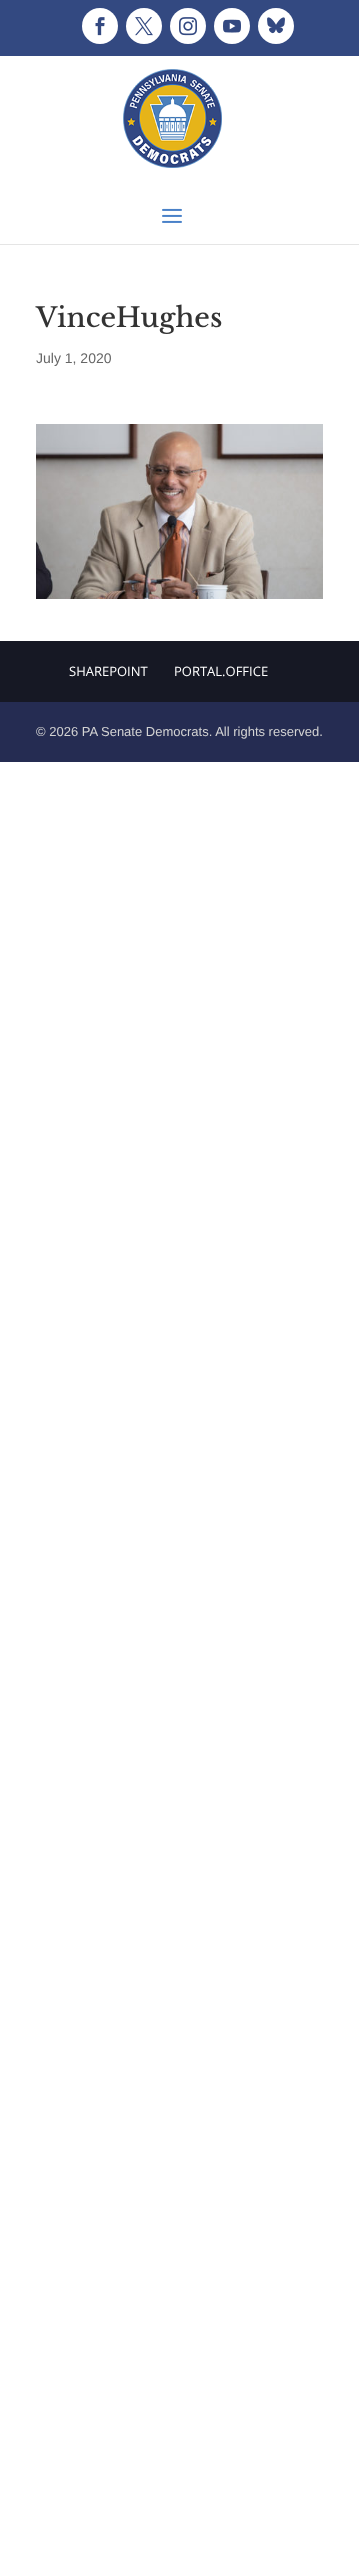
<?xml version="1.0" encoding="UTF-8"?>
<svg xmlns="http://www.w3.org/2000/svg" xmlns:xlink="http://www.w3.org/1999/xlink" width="359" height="2550">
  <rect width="100%" height="100%" fill="#ffffff" />
  <rect width="359" height="56" fill="#334981" />
  <circle cx="100" cy="26" r="18" fill="#ffffff" />
  <image x="95" y="17" width="10" height="19" xlink:href="image1.png" />
  <circle cx="144" cy="26" r="18" fill="#ffffff" />
  <image x="135" y="17" width="18" height="19" xlink:href="image2.png" />
  <circle cx="188" cy="26" r="18" fill="#ffffff" />
  <image x="179" y="17" width="18" height="19" xlink:href="image3.png" />
  <circle cx="232" cy="26" r="18" fill="#ffffff" />
  <image x="223" y="19" width="18" height="14" xlink:href="image4.png" />
  <circle cx="276" cy="26" r="18" fill="#ffffff" />
  <image x="267" y="17" width="18" height="17" xlink:href="image5.png" />
  <rect y="244" width="359" height="1" fill="#e5e5e5" />
  <image x="123" y="69" width="99" height="99" xlink:href="image6.png" />
  <image x="162" y="208" width="20" height="15" xlink:href="image7.png" />
  <image x="36" y="424" width="287" height="175" xlink:href="image8.png" />
  <rect y="641" width="359" height="61" fill="#161824" />
  <rect y="702" width="359" height="60" fill="#252c52" />
  <text x="36" y="327" style="font-family: Libre Baskerville; font-size: 27px; font-weight: 500; fill: #333333">VinceHughes</text>
  <text x="36" y="363" style="font-family: Liberation Sans; font-size: 14px; fill: #666666">July 1, 2020</text>
  <text x="69" y="676" style="font-family: Open Sans; font-size: 13px; fill: #ffffff">SHAREPOINT</text>
  <text x="174" y="676" style="font-family: Open Sans; font-size: 13px; fill: #ffffff">PORTAL.OFFICE</text>
  <text x="36" y="736" style="font-family: Liberation Sans; font-size: 13px; fill: #d3d3d3">© 2026 PA Senate Democrats. All rights reserved.</text>
</svg>
